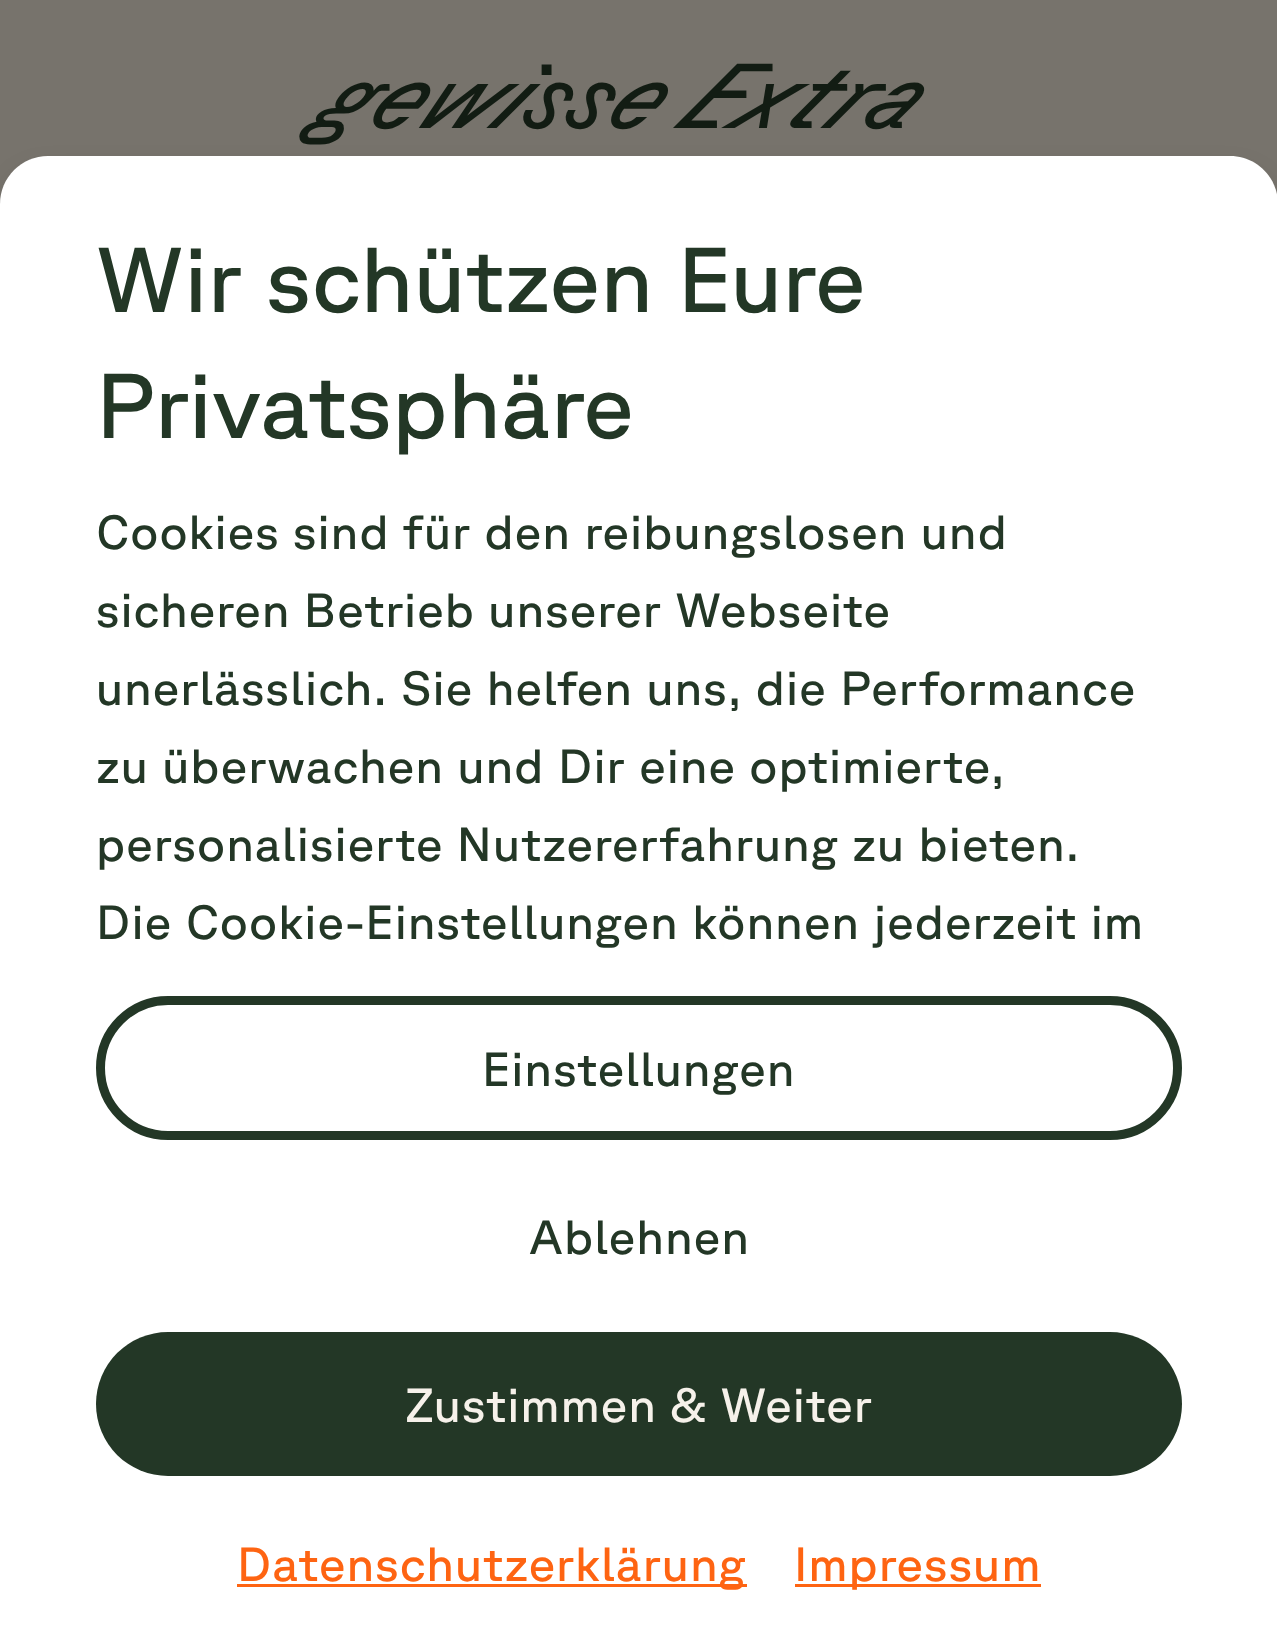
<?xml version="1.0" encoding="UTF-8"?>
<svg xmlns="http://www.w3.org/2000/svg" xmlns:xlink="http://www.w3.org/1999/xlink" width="1277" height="1649">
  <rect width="100%" height="100%" fill="#77736c" />
  <rect y="168" width="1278" height="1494" rx="48" fill="#000000" fill-opacity="0.09" filter="blur(12px)" />
  <path d="M 48 156 h 1182 c 26.5 0 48 21.5 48 48 v 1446 h -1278 v -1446 c 0 -26.5 21.5 -48 48 -48 z" fill="#ffffff" />
  <rect x="100.5" y="1000.5" width="1077" height="135" rx="67.5" fill="none" stroke="#233726" stroke-width="9" />
  <rect x="96" y="1332" width="1086" height="144" rx="72" fill="#233726" />
  <rect x="237" y="1584" width="510" height="3" fill="#fe6412" />
  <rect x="795" y="1584" width="246" height="3" fill="#fe6412" />
  <text x="322" y="128" style="font-family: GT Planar; font-size: 91.75px; font-style: italic; letter-spacing: 0.5px; fill: #121c13">gewisse Extra</text>
  <text x="96" y="312" style="font-family: GT Planar; font-size: 91.75px; letter-spacing: 0.5px; fill: #233726">Wir schützen Eure</text>
  <text x="96" y="438" style="font-family: GT Planar; font-size: 91.75px; letter-spacing: 0.5px; fill: #233726">Privatsphäre</text>
  <text x="96" y="549" style="font-family: GT Planar; font-size: 48px; letter-spacing: 1.15px; fill: #233726">Cookies sind für den reibungslosen und</text>
  <text x="96" y="627" style="font-family: GT Planar; font-size: 48px; letter-spacing: 1.15px; fill: #233726">sicheren Betrieb unserer Webseite</text>
  <text x="96" y="705" style="font-family: GT Planar; font-size: 48px; letter-spacing: 1.15px; fill: #233726">unerlässlich. Sie helfen uns, die Performance</text>
  <text x="96" y="783" style="font-family: GT Planar; font-size: 48px; letter-spacing: 1.15px; fill: #233726">zu überwachen und Dir eine optimierte,</text>
  <text x="96" y="861" style="font-family: GT Planar; font-size: 48px; letter-spacing: 1.15px; fill: #233726">personalisierte Nutzererfahrung zu bieten.</text>
  <text x="96" y="939" style="font-family: GT Planar; font-size: 48px; letter-spacing: 1.15px; fill: #233726">Die Cookie-Einstellungen können jederzeit im</text>
  <text x="482" y="1086" style="font-family: GT Planar; font-size: 48px; letter-spacing: 1.15px; fill: #233726">Einstellungen</text>
  <text x="529" y="1254" style="font-family: GT Planar; font-size: 48px; letter-spacing: 1.15px; fill: #233726">Ablehnen</text>
  <text x="405" y="1422" style="font-family: GT Planar; font-size: 48px; letter-spacing: 1.15px; fill: #f6f1ea">Zustimmen &amp; Weiter</text>
  <text x="237" y="1581" style="font-family: GT Planar; font-size: 48px; letter-spacing: 1.15px; fill: #fe6412">Datenschutzerklärung</text>
  <text x="794" y="1581" style="font-family: GT Planar; font-size: 48px; letter-spacing: 1.15px; fill: #fe6412">Impressum</text>
</svg>
